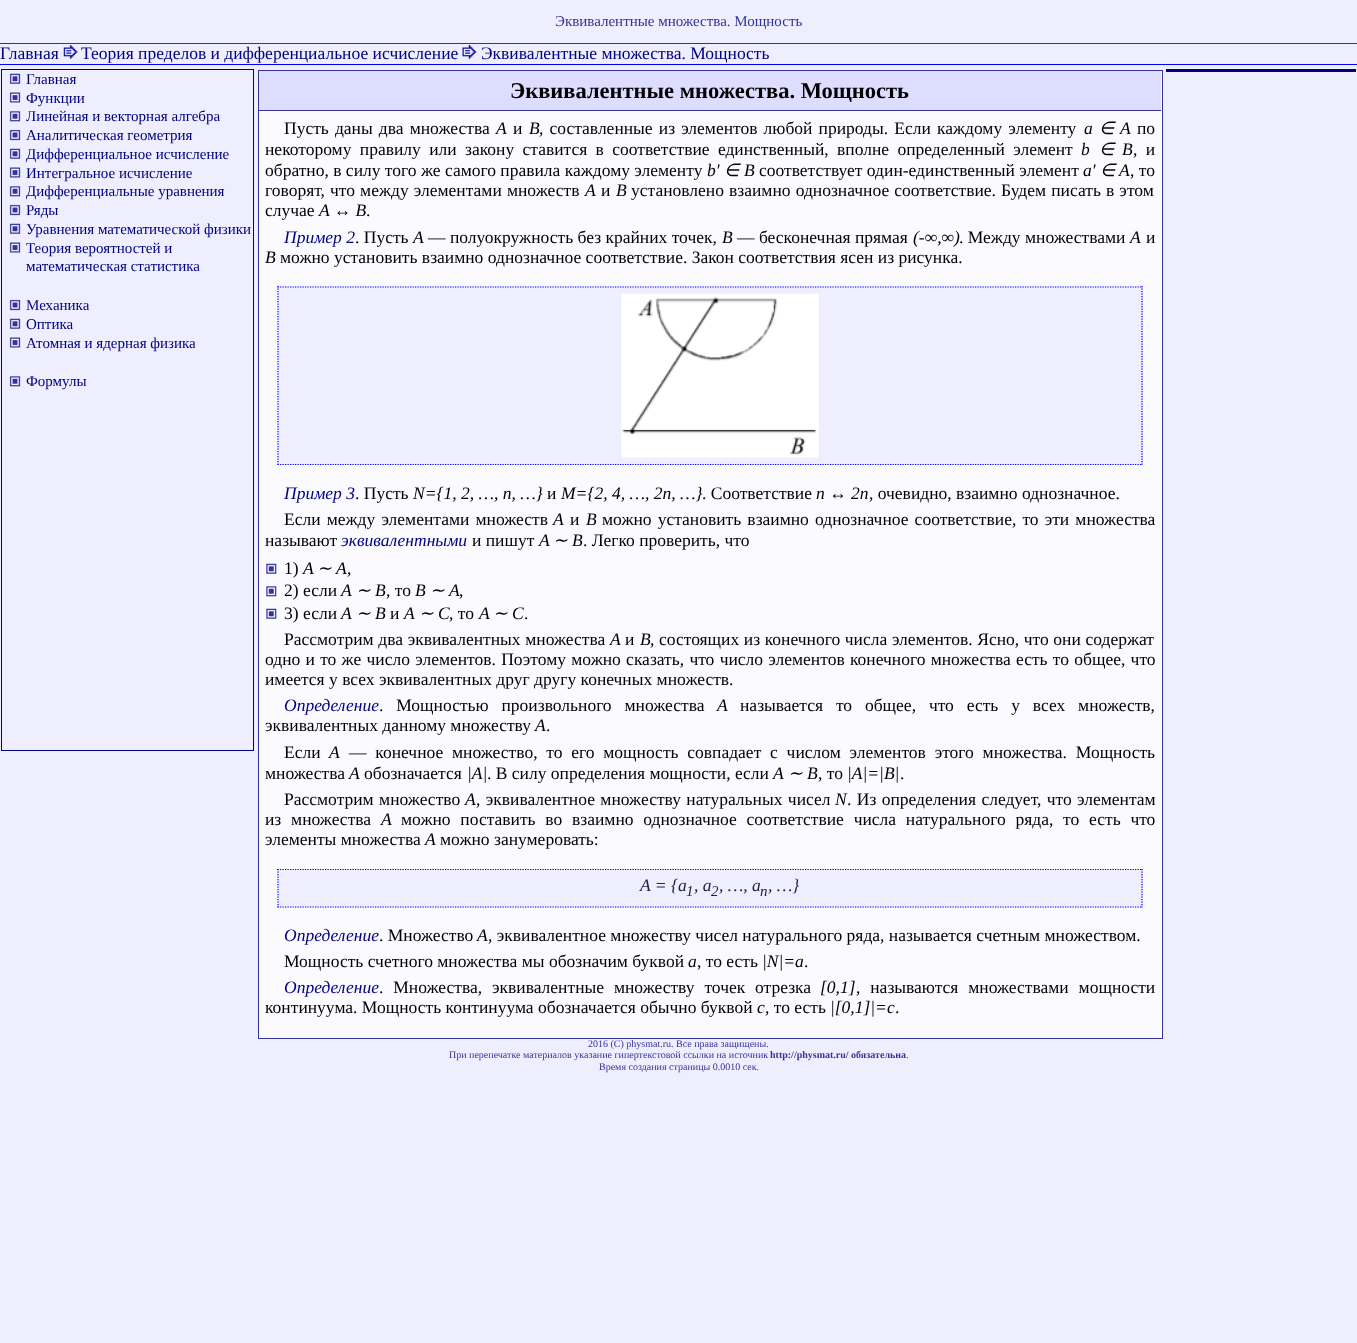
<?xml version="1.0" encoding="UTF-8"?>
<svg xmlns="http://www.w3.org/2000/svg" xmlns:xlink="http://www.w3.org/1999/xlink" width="1357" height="1343">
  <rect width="100%" height="100%" fill="#eeeeff" />
  <rect y="43" width="1357" height="1" fill="#333399" />
  <rect y="64" width="1357" height="1" fill="#0000ff" />
  <image x="63" y="45" width="15" height="14" xlink:href="image1.png" />
  <image x="462" y="45" width="15" height="14" xlink:href="image2.png" />
  <rect x="1166" y="69" width="190" height="3" fill="#000080" />
  <rect x="1.5" y="69.5" width="252" height="681" fill="none" stroke="#000080" />
  <image x="9" y="73" width="12" height="11" xlink:href="image3.png" />
  <image x="9" y="92" width="12" height="11" xlink:href="image4.png" />
  <image x="9" y="111" width="12" height="11" xlink:href="image5.png" />
  <image x="9" y="129" width="12" height="12" xlink:href="image6.png" />
  <image x="9" y="148" width="12" height="11" xlink:href="image3.png" />
  <image x="9" y="167" width="12" height="11" xlink:href="image4.png" />
  <image x="9" y="186" width="12" height="11" xlink:href="image5.png" />
  <image x="9" y="204" width="12" height="12" xlink:href="image6.png" />
  <image x="9" y="223" width="12" height="11" xlink:href="image3.png" />
  <image x="9" y="242" width="12" height="11" xlink:href="image4.png" />
  <image x="9" y="299" width="12" height="12" xlink:href="image6.png" />
  <image x="9" y="318" width="12" height="11" xlink:href="image3.png" />
  <image x="9" y="337" width="12" height="11" xlink:href="image4.png" />
  <image x="9" y="376" width="12" height="11" xlink:href="image5.png" />
  <rect x="258.5" y="70.5" width="904" height="968" fill="#fafaff" stroke="#333399" />
  <rect x="259" y="71" width="902" height="39" fill="#ddddff" />
  <rect x="259" y="110" width="902" height="1" fill="#333399" />
  <rect x="278" y="286" width="865" height="179" fill="#eeeeff" />
  <path d="M 277.5 287 h 865" fill="none" stroke="#0000ff" stroke-width="1.2" stroke-dasharray="1.25 1.25" />
  <path d="M 1142 286 v 179" fill="none" stroke="#0000ff" stroke-width="1.2" stroke-dasharray="1.25 1.25" />
  <path d="M 277.5 464.5 h 865" fill="none" stroke="#0000ff" stroke-width="1.2" stroke-dasharray="1.25 1.25" />
  <path d="M 278 286 v 179" fill="none" stroke="#0000ff" stroke-width="1.2" stroke-dasharray="1.25 1.25" />
  <image x="621" y="293" width="198" height="165" xlink:href="image7.png" />
  <image x="266" y="563" width="11" height="11" xlink:href="image8.png" />
  <image x="266" y="586" width="11" height="11" xlink:href="image9.png" />
  <image x="266" y="608" width="11" height="11" xlink:href="image8.png" />
  <rect x="278" y="869" width="865" height="39" fill="#eeeeff" />
  <path d="M 277.5 869.5 h 865" fill="none" stroke="#0000ff" stroke-width="1.2" stroke-dasharray="1.25 1.25" />
  <path d="M 1142 869 v 38.5" fill="none" stroke="#0000ff" stroke-width="1.2" stroke-dasharray="1.25 1.25" />
  <path d="M 277.5 907 h 865" fill="none" stroke="#0000ff" stroke-width="1.2" stroke-dasharray="1.25 1.25" />
  <path d="M 278 869 v 38.5" fill="none" stroke="#0000ff" stroke-width="1.2" stroke-dasharray="1.25 1.25" />
  <text x="555" y="26" style="font-family: Liberation Serif; font-size: 15px; fill: #333399">Эквивалентные множества. Мощность</text>
  <text x="0" y="59" style="font-family: Liberation Serif; font-size: 17.5px; fill: #000080">Главная</text>
  <text x="81" y="59" style="font-family: Liberation Serif; font-size: 17.5px; fill: #000080">Теория пределов и дифференциальное исчисление</text>
  <text x="481" y="59" style="font-family: Liberation Serif; font-size: 17.5px; fill: #000080">Эквивалентные множества. Мощность</text>
  <text x="26" y="84" style="font-family: Liberation Serif; font-size: 15px; fill: #000080">Главная</text>
  <text x="26" y="103" style="font-family: Liberation Serif; font-size: 15px; fill: #000080">Функции</text>
  <text x="26" y="121" style="font-family: Liberation Serif; font-size: 15px; fill: #000080">Линейная и векторная алгебра</text>
  <text x="26" y="140" style="font-family: Liberation Serif; font-size: 15px; fill: #000080">Аналитическая геометрия</text>
  <text x="26" y="159" style="font-family: Liberation Serif; font-size: 15px; fill: #000080">Дифференциальное исчисление</text>
  <text x="26" y="178" style="font-family: Liberation Serif; font-size: 15px; fill: #000080">Интегральное исчисление</text>
  <text x="26" y="196" style="font-family: Liberation Serif; font-size: 15px; fill: #000080">Дифференциальные уравнения</text>
  <text x="26" y="215" style="font-family: Liberation Serif; font-size: 15px; fill: #000080">Ряды</text>
  <text x="26" y="234" style="font-family: Liberation Serif; font-size: 15px; fill: #000080">Уравнения математической физики</text>
  <text x="26" y="253" style="font-family: Liberation Serif; font-size: 15px; fill: #000080">Теория вероятностей и</text>
  <text x="26" y="271" style="font-family: Liberation Serif; font-size: 15px; fill: #000080">математическая статистика</text>
  <text x="26" y="310" style="font-family: Liberation Serif; font-size: 15px; fill: #000080">Механика</text>
  <text x="26" y="329" style="font-family: Liberation Serif; font-size: 15px; fill: #000080">Оптика</text>
  <text x="26" y="348" style="font-family: Liberation Serif; font-size: 15px; fill: #000080">Атомная и ядерная физика</text>
  <text x="26" y="386" style="font-family: Liberation Serif; font-size: 15px; fill: #000080">Формулы</text>
  <text x="510" y="98" style="font-family: Liberation Serif; font-size: 22.5px; font-weight: bold; fill: #000000">Эквивалентные множества. Мощность</text>
  <text x="284" y="134" word-spacing="1.75" style="font-family: Liberation Serif; font-size: 17.5px; fill: #000000">Пусть даны два множества</text>
  <text x="496" y="134" style="font-family: Liberation Serif; font-size: 17.5px; font-style: italic; fill: #000000">A</text>
  <text x="513" y="134" style="font-family: Liberation Serif; font-size: 17.5px; fill: #000000">и</text>
  <text x="529" y="134" style="font-family: Liberation Serif; font-size: 17.5px; font-style: italic; fill: #000000">B</text>
  <text x="539" y="134" word-spacing="1.75" style="font-family: Liberation Serif; font-size: 17.5px; fill: #000000">, составленные из элементов любой природы. Если каждому элементу</text>
  <text x="1084" y="134" style="font-family: Liberation Serif; font-size: 17.5px; font-style: italic; fill: #000000">a</text>
  <text x="1099" y="134" style="font-family: DejaVu Sans; font-size: 17.5px; font-style: italic; fill: #000000">∈</text>
  <text x="1120" y="134" style="font-family: Liberation Serif; font-size: 17.5px; font-style: italic; fill: #000000">A</text>
  <text x="1137" y="134" style="font-family: Liberation Serif; font-size: 17.5px; fill: #000000">по</text>
  <text x="265" y="155" word-spacing="4" style="font-family: Liberation Serif; font-size: 17.5px; fill: #000000">некоторому правилу или закону ставится в соответствие единственный, вполне определенный элемент</text>
  <text x="1081" y="155" style="font-family: Liberation Serif; font-size: 17.5px; font-style: italic; fill: #000000">b</text>
  <text x="1099" y="155" style="font-family: DejaVu Sans; font-size: 17.5px; font-style: italic; fill: #000000">∈</text>
  <text x="1122" y="155" style="font-family: Liberation Serif; font-size: 17.5px; font-style: italic; fill: #000000">B</text>
  <text x="1133" y="155" word-spacing="4" style="font-family: Liberation Serif; font-size: 17.5px; fill: #000000">, и</text>
  <text x="265" y="176" style="font-family: Liberation Serif; font-size: 17.5px; fill: #000000">обратно, в силу того же самого правила каждому элементу</text>
  <text x="707" y="176" style="font-family: Liberation Serif; font-size: 17.5px; font-style: italic; fill: #000000">b′</text>
  <text x="724" y="176" style="font-family: DejaVu Sans; font-size: 17.5px; font-style: italic; fill: #000000">∈</text>
  <text x="744" y="176" style="font-family: Liberation Serif; font-size: 17.5px; font-style: italic; fill: #000000">B</text>
  <text x="759" y="176" style="font-family: Liberation Serif; font-size: 17.5px; fill: #000000">соответствует один-единственный элемент</text>
  <text x="1083" y="176" style="font-family: Liberation Serif; font-size: 17.5px; font-style: italic; fill: #000000">a′</text>
  <text x="1100" y="176" style="font-family: DejaVu Sans; font-size: 17.5px; font-style: italic; fill: #000000">∈</text>
  <text x="1119" y="176" style="font-family: Liberation Serif; font-size: 17.5px; font-style: italic; fill: #000000">A</text>
  <text x="1130" y="176" style="font-family: Liberation Serif; font-size: 17.5px; fill: #000000">, то</text>
  <text x="265" y="196" word-spacing="0.75" style="font-family: Liberation Serif; font-size: 17.5px; fill: #000000">говорят, что между элементами множеств</text>
  <text x="585" y="196" style="font-family: Liberation Serif; font-size: 17.5px; font-style: italic; fill: #000000">A</text>
  <text x="601" y="196" style="font-family: Liberation Serif; font-size: 17.5px; fill: #000000">и</text>
  <text x="616" y="196" style="font-family: Liberation Serif; font-size: 17.5px; font-style: italic; fill: #000000">B</text>
  <text x="631" y="196" word-spacing="0.75" style="font-family: Liberation Serif; font-size: 17.5px; fill: #000000">установлено взаимно однозначное соответствие. Будем писать в этом</text>
  <text x="265" y="216" style="font-family: Liberation Serif; font-size: 17.5px; fill: #000000">случае</text>
  <text x="319" y="216" style="font-family: Liberation Serif; font-size: 17.5px; font-style: italic; fill: #000000">A ↔ B</text>
  <text x="366" y="216" style="font-family: Liberation Serif; font-size: 17.5px; fill: #000000">.</text>
  <text x="284" y="243" style="font-family: Liberation Serif; font-size: 17.5px; font-style: italic; fill: #000080">Пример 2</text>
  <text x="355" y="243" style="font-family: Liberation Serif; font-size: 17.5px; fill: #000000">. Пусть</text>
  <text x="413" y="243" style="font-family: Liberation Serif; font-size: 17.5px; font-style: italic; fill: #000000">A</text>
  <text x="428" y="243" style="font-family: Liberation Serif; font-size: 17.5px; fill: #000000">— полуокружность без крайних точек,</text>
  <text x="722" y="243" style="font-family: Liberation Serif; font-size: 17.5px; font-style: italic; fill: #000000">B</text>
  <text x="737" y="243" style="font-family: Liberation Serif; font-size: 17.5px; fill: #000000">— бесконечная прямая</text>
  <text x="913" y="243" style="font-family: Liberation Serif; font-size: 17.5px; font-style: italic; fill: #000000">(-∞,∞)</text>
  <text x="959" y="243" style="font-family: Liberation Serif; font-size: 17.5px; fill: #000000">. Между множествами</text>
  <text x="1130" y="243" style="font-family: Liberation Serif; font-size: 17.5px; font-style: italic; fill: #000000">A</text>
  <text x="1146" y="243" style="font-family: Liberation Serif; font-size: 17.5px; fill: #000000">и</text>
  <text x="265" y="263" style="font-family: Liberation Serif; font-size: 17.5px; font-style: italic; fill: #000000">B</text>
  <text x="280" y="263" style="font-family: Liberation Serif; font-size: 17.5px; fill: #000000">можно установить взаимно однозначное соответствие. Закон соответствия ясен из рисунка.</text>
  <text x="284" y="499" style="font-family: Liberation Serif; font-size: 17.5px; font-style: italic; fill: #000080">Пример 3</text>
  <text x="355" y="499" style="font-family: Liberation Serif; font-size: 17.5px; fill: #000000">. Пусть</text>
  <text x="413" y="499" style="font-family: Liberation Serif; font-size: 17.5px; font-style: italic; fill: #000000">N={1, 2, …, n, …}</text>
  <text x="547" y="499" style="font-family: Liberation Serif; font-size: 17.5px; fill: #000000">и</text>
  <text x="561" y="499" style="font-family: Liberation Serif; font-size: 17.5px; font-style: italic; fill: #000000">M={2, 4, …, 2n, …}</text>
  <text x="702" y="499" style="font-family: Liberation Serif; font-size: 17.5px; fill: #000000">. Соответствие</text>
  <text x="816" y="499" style="font-family: Liberation Serif; font-size: 17.5px; font-style: italic; fill: #000000">n ↔ 2n</text>
  <text x="869" y="499" style="font-family: Liberation Serif; font-size: 17.5px; fill: #000000">, очевидно, взаимно однозначное.</text>
  <text x="284" y="525" word-spacing="1.75" style="font-family: Liberation Serif; font-size: 17.5px; fill: #000000">Если между элементами множеств</text>
  <text x="553" y="525" style="font-family: Liberation Serif; font-size: 17.5px; font-style: italic; fill: #000000">A</text>
  <text x="570" y="525" style="font-family: Liberation Serif; font-size: 17.5px; fill: #000000">и</text>
  <text x="586" y="525" style="font-family: Liberation Serif; font-size: 17.5px; font-style: italic; fill: #000000">B</text>
  <text x="602" y="525" word-spacing="1.75" style="font-family: Liberation Serif; font-size: 17.5px; fill: #000000">можно установить взаимно однозначное соответствие, то эти множества</text>
  <text x="265" y="546" style="font-family: Liberation Serif; font-size: 17.5px; fill: #000000">называют</text>
  <text x="341" y="546" style="font-family: Liberation Serif; font-size: 17.5px; font-style: italic; fill: #000080">эквивалентными</text>
  <text x="472" y="546" style="font-family: Liberation Serif; font-size: 17.5px; fill: #000000">и пишут</text>
  <text x="539" y="546" style="font-family: Liberation Serif; font-size: 17.5px; font-style: italic; fill: #000000">A</text>
  <text x="553" y="546" style="font-family: DejaVu Sans; font-size: 17.5px; font-style: italic; fill: #000000">∼</text>
  <text x="572" y="546" style="font-family: Liberation Serif; font-size: 17.5px; font-style: italic; fill: #000000">B</text>
  <text x="583" y="546" style="font-family: Liberation Serif; font-size: 17.5px; fill: #000000">. Легко проверить, что</text>
  <text x="284" y="574" style="font-family: Liberation Serif; font-size: 17.5px; fill: #000000">1)</text>
  <text x="303" y="574" style="font-family: Liberation Serif; font-size: 17.5px; font-style: italic; fill: #000000">A</text>
  <text x="317" y="574" style="font-family: DejaVu Sans; font-size: 17.5px; font-style: italic; fill: #000000">∼</text>
  <text x="336" y="574" style="font-family: Liberation Serif; font-size: 17.5px; font-style: italic; fill: #000000">A</text>
  <text x="347" y="574" style="font-family: Liberation Serif; font-size: 17.5px; fill: #000000">,</text>
  <text x="284" y="596" style="font-family: Liberation Serif; font-size: 17.5px; fill: #000000">2) если</text>
  <text x="341" y="596" style="font-family: Liberation Serif; font-size: 17.5px; font-style: italic; fill: #000000">A</text>
  <text x="356" y="596" style="font-family: DejaVu Sans; font-size: 17.5px; font-style: italic; fill: #000000">∼</text>
  <text x="375" y="596" style="font-family: Liberation Serif; font-size: 17.5px; font-style: italic; fill: #000000">B</text>
  <text x="386" y="596" style="font-family: Liberation Serif; font-size: 17.5px; fill: #000000">, то</text>
  <text x="415" y="596" style="font-family: Liberation Serif; font-size: 17.5px; font-style: italic; fill: #000000">B</text>
  <text x="430" y="596" style="font-family: DejaVu Sans; font-size: 17.5px; font-style: italic; fill: #000000">∼</text>
  <text x="449" y="596" style="font-family: Liberation Serif; font-size: 17.5px; font-style: italic; fill: #000000">A</text>
  <text x="459" y="596" style="font-family: Liberation Serif; font-size: 17.5px; fill: #000000">,</text>
  <text x="284" y="619" style="font-family: Liberation Serif; font-size: 17.5px; fill: #000000">3) если</text>
  <text x="341" y="619" style="font-family: Liberation Serif; font-size: 17.5px; font-style: italic; fill: #000000">A</text>
  <text x="356" y="619" style="font-family: DejaVu Sans; font-size: 17.5px; font-style: italic; fill: #000000">∼</text>
  <text x="375" y="619" style="font-family: Liberation Serif; font-size: 17.5px; font-style: italic; fill: #000000">B</text>
  <text x="390" y="619" style="font-family: Liberation Serif; font-size: 17.5px; fill: #000000">и</text>
  <text x="404" y="619" style="font-family: Liberation Serif; font-size: 17.5px; font-style: italic; fill: #000000">A</text>
  <text x="419" y="619" style="font-family: DejaVu Sans; font-size: 17.5px; font-style: italic; fill: #000000">∼</text>
  <text x="438" y="619" style="font-family: Liberation Serif; font-size: 17.5px; font-style: italic; fill: #000000">C</text>
  <text x="449" y="619" style="font-family: Liberation Serif; font-size: 17.5px; fill: #000000">, то</text>
  <text x="479" y="619" style="font-family: Liberation Serif; font-size: 17.5px; font-style: italic; fill: #000000">A</text>
  <text x="493" y="619" style="font-family: DejaVu Sans; font-size: 17.5px; font-style: italic; fill: #000000">∼</text>
  <text x="512" y="619" style="font-family: Liberation Serif; font-size: 17.5px; font-style: italic; fill: #000000">C</text>
  <text x="524" y="619" style="font-family: Liberation Serif; font-size: 17.5px; fill: #000000">.</text>
  <text x="284" y="645" word-spacing="0.25" style="font-family: Liberation Serif; font-size: 17.5px; fill: #000000">Рассмотрим два эквивалентных множества</text>
  <text x="610" y="645" style="font-family: Liberation Serif; font-size: 17.5px; font-style: italic; fill: #000000">A</text>
  <text x="625" y="645" style="font-family: Liberation Serif; font-size: 17.5px; fill: #000000">и</text>
  <text x="640" y="645" style="font-family: Liberation Serif; font-size: 17.5px; font-style: italic; fill: #000000">B</text>
  <text x="650" y="645" word-spacing="0.25" style="font-family: Liberation Serif; font-size: 17.5px; fill: #000000">, состоящих из конечного числа элементов. Ясно, что они содержат</text>
  <text x="265" y="665" word-spacing="0.9" style="font-family: Liberation Serif; font-size: 17.5px; fill: #000000">одно и то же число элементов. Поэтому можно сказать, что число элементов конечного множества есть то общее, что</text>
  <text x="265" y="685" style="font-family: Liberation Serif; font-size: 17.5px; fill: #000000">имеется у всех эквивалентных друг другу конечных множеств.</text>
  <text x="284" y="711" style="font-family: Liberation Serif; font-size: 17.5px; font-style: italic; fill: #000080">Определение</text>
  <text x="379" y="711" word-spacing="8.5" style="font-family: Liberation Serif; font-size: 17.5px; fill: #000000">. Мощностью произвольного множества</text>
  <text x="717" y="711" style="font-family: Liberation Serif; font-size: 17.5px; font-style: italic; fill: #000000">A</text>
  <text x="740" y="711" word-spacing="8.5" style="font-family: Liberation Serif; font-size: 17.5px; fill: #000000">называется то общее, что есть у всех множеств,</text>
  <text x="265" y="731" style="font-family: Liberation Serif; font-size: 17.5px; fill: #000000">эквивалентных данному множеству</text>
  <text x="535" y="731" style="font-family: Liberation Serif; font-size: 17.5px; font-style: italic; fill: #000000">A</text>
  <text x="546" y="731" style="font-family: Liberation Serif; font-size: 17.5px; fill: #000000">.</text>
  <text x="284" y="758" style="font-family: Liberation Serif; font-size: 17.5px; fill: #000000">Если</text>
  <text x="329" y="758" style="font-family: Liberation Serif; font-size: 17.5px; font-style: italic; fill: #000000">A</text>
  <text x="349" y="758" word-spacing="4.4" style="font-family: Liberation Serif; font-size: 17.5px; fill: #000000">— конечное множество, то его мощность совпадает с числом элементов этого множества. Мощность</text>
  <text x="265" y="779" style="font-family: Liberation Serif; font-size: 17.5px; fill: #000000">множества</text>
  <text x="349" y="779" style="font-family: Liberation Serif; font-size: 17.5px; font-style: italic; fill: #000000">A</text>
  <text x="364" y="779" style="font-family: Liberation Serif; font-size: 17.5px; fill: #000000">обозначается</text>
  <text x="467" y="779" style="font-family: Liberation Serif; font-size: 17.5px; font-style: italic; fill: #000000">|A|</text>
  <text x="487" y="779" style="font-family: Liberation Serif; font-size: 17.5px; fill: #000000">. В силу определения мощности, если</text>
  <text x="773" y="779" style="font-family: Liberation Serif; font-size: 17.5px; font-style: italic; fill: #000000">A</text>
  <text x="788" y="779" style="font-family: DejaVu Sans; font-size: 17.5px; font-style: italic; fill: #000000">∼</text>
  <text x="807" y="779" style="font-family: Liberation Serif; font-size: 17.5px; font-style: italic; fill: #000000">B</text>
  <text x="818" y="779" style="font-family: Liberation Serif; font-size: 17.5px; fill: #000000">, то</text>
  <text x="847" y="779" style="font-family: Liberation Serif; font-size: 17.5px; font-style: italic; fill: #000000">|A|=|B|</text>
  <text x="900" y="779" style="font-family: Liberation Serif; font-size: 17.5px; fill: #000000">.</text>
  <text x="284" y="805" word-spacing="1" style="font-family: Liberation Serif; font-size: 17.5px; fill: #000000">Рассмотрим множество</text>
  <text x="465" y="805" style="font-family: Liberation Serif; font-size: 17.5px; font-style: italic; fill: #000000">A</text>
  <text x="476" y="805" word-spacing="1" style="font-family: Liberation Serif; font-size: 17.5px; fill: #000000">, эквивалентное множеству натуральных чисел</text>
  <text x="835" y="805" style="font-family: Liberation Serif; font-size: 17.5px; font-style: italic; fill: #000000">N</text>
  <text x="847" y="805" word-spacing="1" style="font-family: Liberation Serif; font-size: 17.5px; fill: #000000">. Из определения следует, что элементам</text>
  <text x="265" y="825" word-spacing="5.4" style="font-family: Liberation Serif; font-size: 17.5px; fill: #000000">из множества</text>
  <text x="381" y="825" style="font-family: Liberation Serif; font-size: 17.5px; font-style: italic; fill: #000000">A</text>
  <text x="401" y="825" word-spacing="5.4" style="font-family: Liberation Serif; font-size: 17.5px; fill: #000000">можно поставить во взаимно однозначное соответствие числа натурального ряда, то есть что</text>
  <text x="265" y="845" style="font-family: Liberation Serif; font-size: 17.5px; fill: #000000">элементы множества</text>
  <text x="425" y="845" style="font-family: Liberation Serif; font-size: 17.5px; font-style: italic; fill: #000000">A</text>
  <text x="440" y="845" style="font-family: Liberation Serif; font-size: 17.5px; fill: #000000">можно занумеровать:</text>
  <text x="640" y="891" style="font-family: Liberation Serif; font-size: 17.5px; font-style: italic; fill: #222244">A = {a</text>
  <text x="686" y="896" style="font-family: Liberation Serif; font-size: 15px; font-style: italic; fill: #222244">1</text>
  <text x="694" y="891" style="font-family: Liberation Serif; font-size: 17.5px; font-style: italic; fill: #222244">, a</text>
  <text x="711" y="896" style="font-family: Liberation Serif; font-size: 15px; font-style: italic; fill: #222244">2</text>
  <text x="719" y="891" style="font-family: Liberation Serif; font-size: 17.5px; font-style: italic; fill: #222244">, …, a</text>
  <text x="760" y="896" style="font-family: Liberation Serif; font-size: 15px; font-style: italic; fill: #222244">n</text>
  <text x="768" y="891" style="font-family: Liberation Serif; font-size: 17.5px; font-style: italic; fill: #222244">, …}</text>
  <text x="284" y="941" style="font-family: Liberation Serif; font-size: 17.5px; font-style: italic; fill: #000080">Определение</text>
  <text x="379" y="941" style="font-family: Liberation Serif; font-size: 17.5px; fill: #000000">. Множество</text>
  <text x="477" y="941" style="font-family: Liberation Serif; font-size: 17.5px; font-style: italic; fill: #000000">A</text>
  <text x="488" y="941" style="font-family: Liberation Serif; font-size: 17.5px; fill: #000000">, эквивалентное множеству чисел натурального ряда, называется счетным множеством.</text>
  <text x="284" y="967" style="font-family: Liberation Serif; font-size: 17.5px; fill: #000000">Мощность счетного множества мы обозначим буквой</text>
  <text x="688" y="967" style="font-family: Liberation Serif; font-size: 17.5px; font-style: italic; fill: #000000">a</text>
  <text x="697" y="967" style="font-family: Liberation Serif; font-size: 17.5px; fill: #000000">, то есть</text>
  <text x="762" y="967" style="font-family: Liberation Serif; font-size: 17.5px; font-style: italic; fill: #000000">|N|=a</text>
  <text x="804" y="967" style="font-family: Liberation Serif; font-size: 17.5px; fill: #000000">.</text>
  <text x="284" y="993" style="font-family: Liberation Serif; font-size: 17.5px; font-style: italic; fill: #000080">Определение</text>
  <text x="379" y="993" word-spacing="5.5" style="font-family: Liberation Serif; font-size: 17.5px; fill: #000000">. Множества, эквивалентные множеству точек отрезка</text>
  <text x="820" y="993" style="font-family: Liberation Serif; font-size: 17.5px; font-style: italic; fill: #000000">[0,1]</text>
  <text x="856" y="993" word-spacing="5.5" style="font-family: Liberation Serif; font-size: 17.5px; fill: #000000">, называются множествами мощности</text>
  <text x="265" y="1013" style="font-family: Liberation Serif; font-size: 17.5px; fill: #000000">континуума. Мощность континуума обозначается обычно буквой</text>
  <text x="757" y="1013" style="font-family: Liberation Serif; font-size: 17.5px; font-style: italic; fill: #000000">c</text>
  <text x="765" y="1013" style="font-family: Liberation Serif; font-size: 17.5px; fill: #000000">, то есть</text>
  <text x="830" y="1013" style="font-family: Liberation Serif; font-size: 17.5px; font-style: italic; fill: #000000">|[0,1]|=c</text>
  <text x="895" y="1013" style="font-family: Liberation Serif; font-size: 17.5px; fill: #000000">.</text>
  <text x="588" y="1047" style="font-family: Liberation Serif; font-size: 10px; fill: #333399">2016 (C) physmat.ru. Все права защищены.</text>
  <text x="449" y="1058" style="font-family: Liberation Serif; font-size: 10px; fill: #333399">При перепечатке материалов указание гипертекстовой ссылки на источник</text>
  <text x="770" y="1058" style="font-family: Liberation Serif; font-size: 10px; font-weight: bold; fill: #333399">http://physmat.ru/ обязательна</text>
  <text x="906" y="1058" style="font-family: Liberation Serif; font-size: 10px; fill: #333399">.</text>
  <text x="599" y="1070" style="font-family: Liberation Serif; font-size: 10px; fill: #333399">Время создания страницы 0.0010 сек.</text>
</svg>
